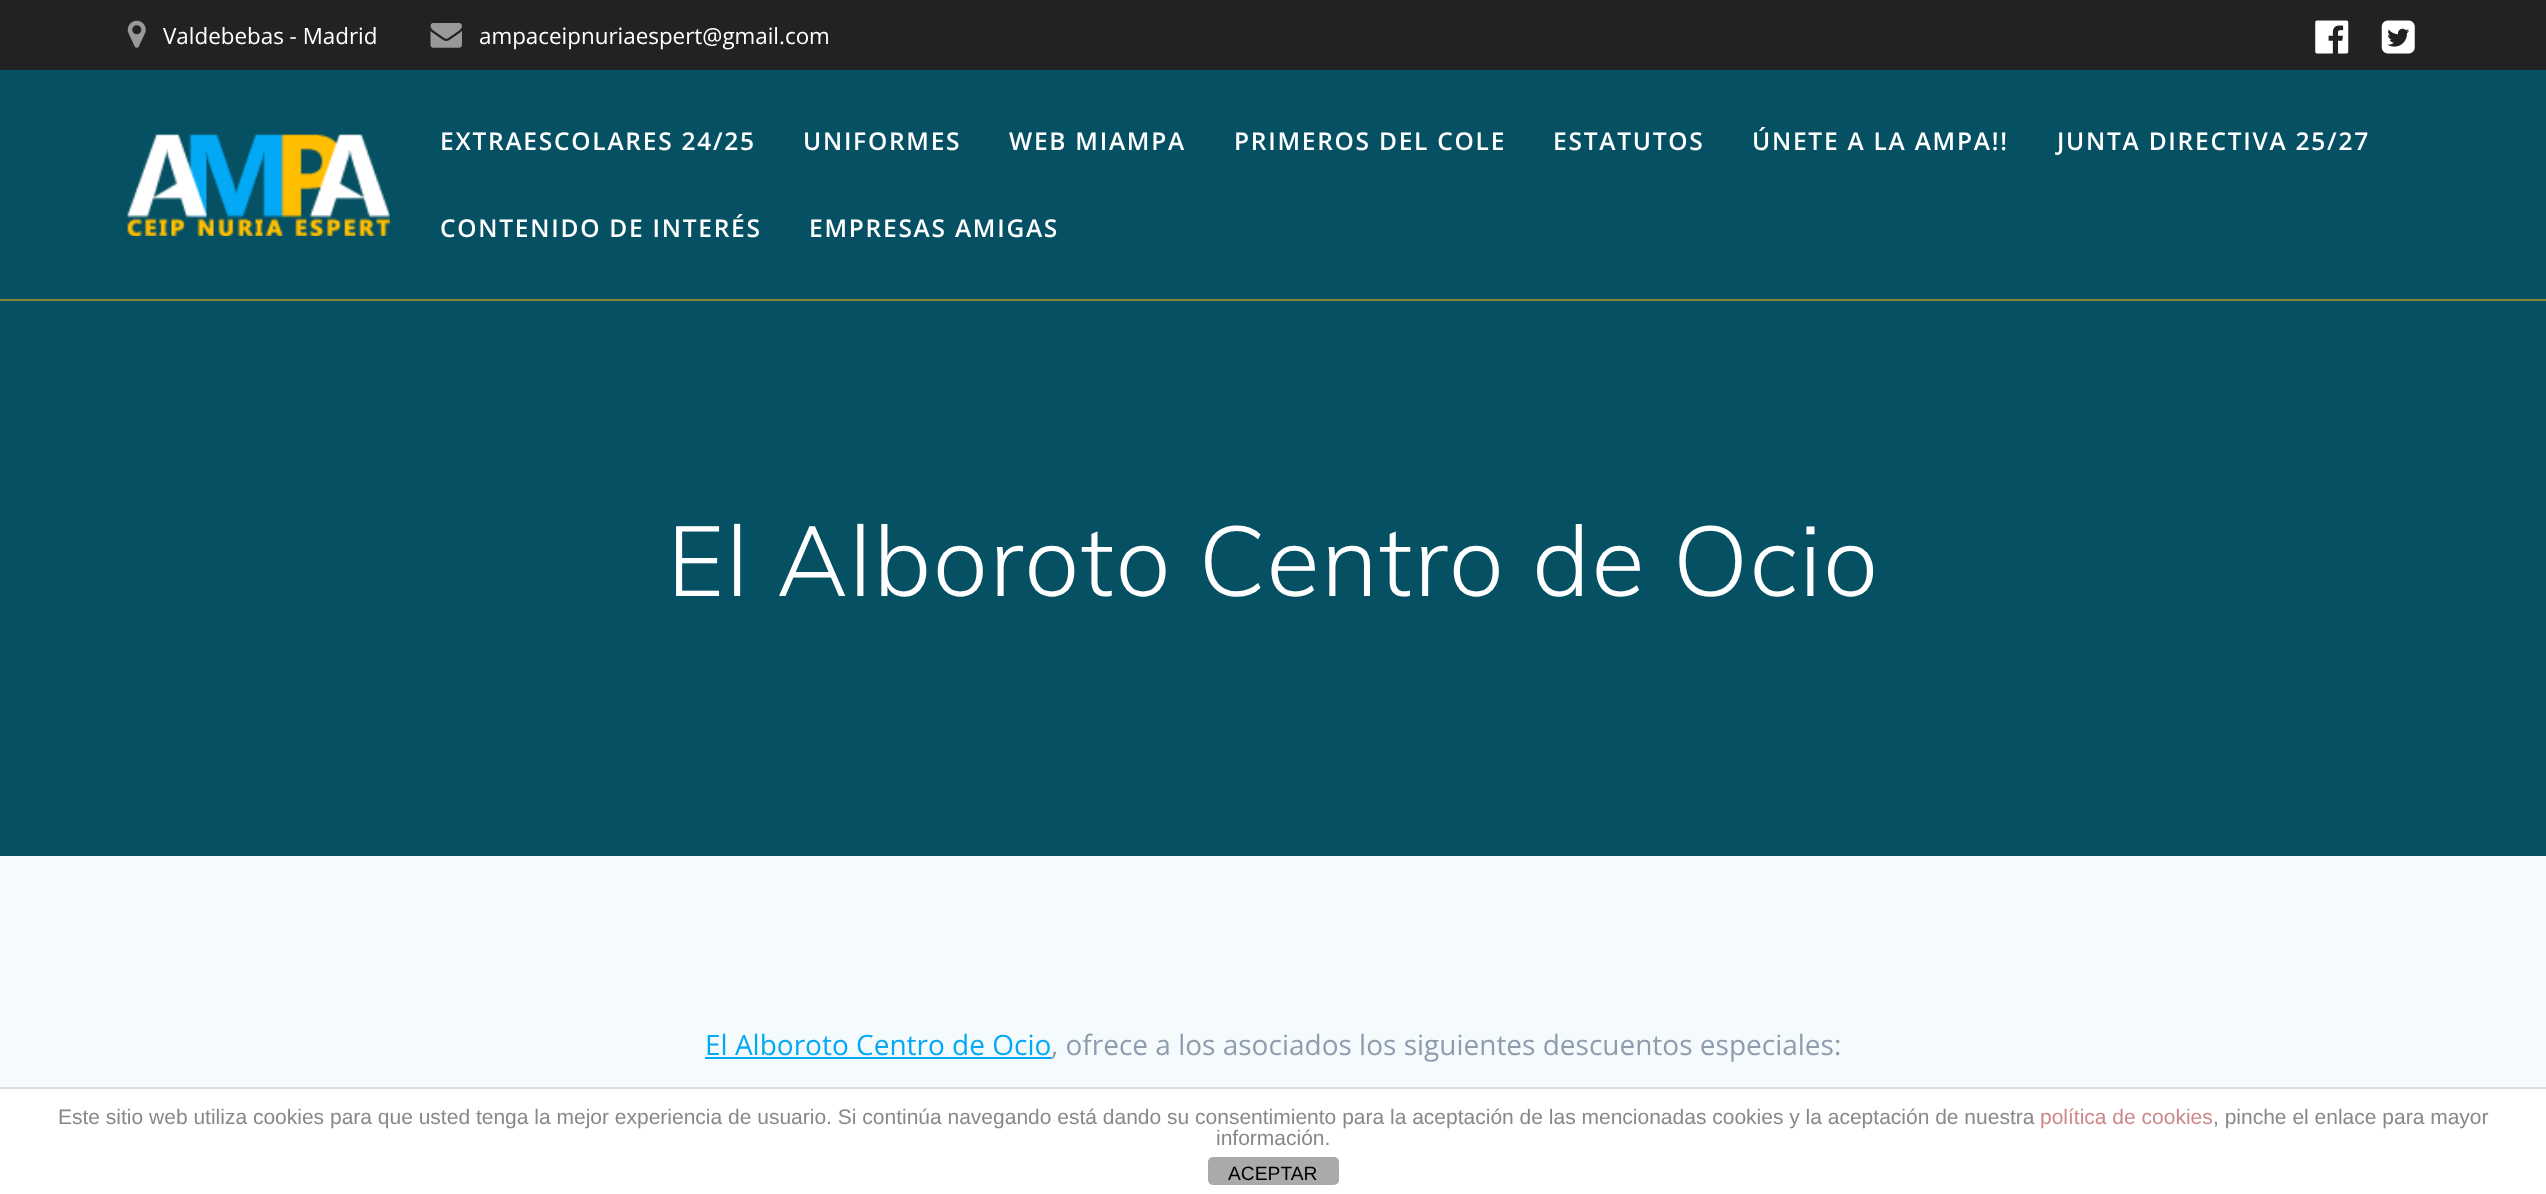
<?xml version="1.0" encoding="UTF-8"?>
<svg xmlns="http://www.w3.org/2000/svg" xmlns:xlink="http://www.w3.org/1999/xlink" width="2546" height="1194">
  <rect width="100%" height="100%" fill="#065063" />
  <rect width="2546" height="70" fill="#222222" />
  <image x="127" y="20" width="19" height="28" xlink:href="image1.png" />
  <image x="430" y="23" width="32" height="25" xlink:href="image2.png" />
  <image x="2315" y="20" width="34" height="34" xlink:href="image3.png" />
  <image x="2381" y="20" width="34" height="34" xlink:href="image4.png" />
  <rect y="299" width="2546" height="2" fill="#838832" />
  <image x="127" y="134" width="263" height="102" xlink:href="image5.png" />
  <rect y="856" width="2546" height="231" fill="#f5fafd" />
  <rect x="705" y="1057" width="347" height="2" fill="#03a9f4" />
  <rect y="1089" width="2546" height="105" fill="#ffffff" />
  <rect y="1087" width="2546" height="2" fill="#dddddd" />
  <rect x="1208" y="1157" width="131" height="28" rx="5" fill="#aaaaaa" />
  <text x="163" y="44" style="font-family: Open Sans; font-size: 22.4px; fill: #ffffff">Valdebebas - Madrid</text>
  <text x="479" y="44" style="font-family: Open Sans; font-size: 22.4px; fill: #ffffff">ampaceipnuriaespert@gmail.com</text>
  <text x="440" y="150" style="font-family: Open Sans; font-size: 24.5px; font-weight: 600; letter-spacing: 1.75px; fill: #ffffff">EXTRAESCOLARES 24/25</text>
  <text x="803" y="150" style="font-family: Open Sans; font-size: 24.5px; font-weight: 600; letter-spacing: 1.75px; fill: #ffffff">UNIFORMES</text>
  <text x="1009" y="150" style="font-family: Open Sans; font-size: 24.5px; font-weight: 600; letter-spacing: 1.75px; fill: #ffffff">WEB MIAMPA</text>
  <text x="1234" y="150" style="font-family: Open Sans; font-size: 24.5px; font-weight: 600; letter-spacing: 1.75px; fill: #ffffff">PRIMEROS DEL COLE</text>
  <text x="1553" y="150" style="font-family: Open Sans; font-size: 24.5px; font-weight: 600; letter-spacing: 1.75px; fill: #ffffff">ESTATUTOS</text>
  <text x="1752" y="150" style="font-family: Open Sans; font-size: 24.5px; font-weight: 600; letter-spacing: 1.75px; fill: #ffffff">ÚNETE A LA AMPA!!</text>
  <text x="2057" y="150" style="font-family: Open Sans; font-size: 24.5px; font-weight: 600; letter-spacing: 1.75px; fill: #ffffff">JUNTA DIRECTIVA 25/27</text>
  <text x="440" y="237" style="font-family: Open Sans; font-size: 24.5px; font-weight: 600; letter-spacing: 1.75px; fill: #ffffff">CONTENIDO DE INTERÉS</text>
  <text x="809" y="237" style="font-family: Open Sans; font-size: 24.5px; font-weight: 600; letter-spacing: 1.75px; fill: #ffffff">EMPRESAS AMIGAS</text>
  <text x="667" y="596" style="font-family: Muli; font-size: 98px; font-weight: 300; letter-spacing: 1.6px; fill: #ffffff">El Alboroto Centro de Ocio</text>
  <text x="705" y="1055" style="font-family: Open Sans; font-size: 28px; fill: #03a9f4">El Alboroto Centro de Ocio</text>
  <text x="1051" y="1055" style="font-family: Open Sans; font-size: 28px; fill: #8e9dae">, ofrece a los asociados los siguientes descuentos especiales:</text>
  <text x="58" y="1124" style="font-family: Liberation Sans; font-size: 21px; fill: #888888">Este sitio web utiliza cookies para que usted tenga la mejor experiencia de usuario. Si continúa navegando está dando su consentimiento para la aceptación de las mencionadas cookies y la aceptación de nuestra</text>
  <text x="2040" y="1124" style="font-family: Liberation Sans; font-size: 21px; fill: #cc8888">política de cookies</text>
  <text x="2213" y="1124" style="font-family: Liberation Sans; font-size: 21px; fill: #888888">, pinche el enlace para mayor</text>
  <text x="1216" y="1145" style="font-family: Liberation Sans; font-size: 21px; fill: #888888">información.</text>
  <text x="1228" y="1180" style="font-family: Liberation Sans; font-size: 19.25px; fill: #000000">ACEPTAR</text>
</svg>
